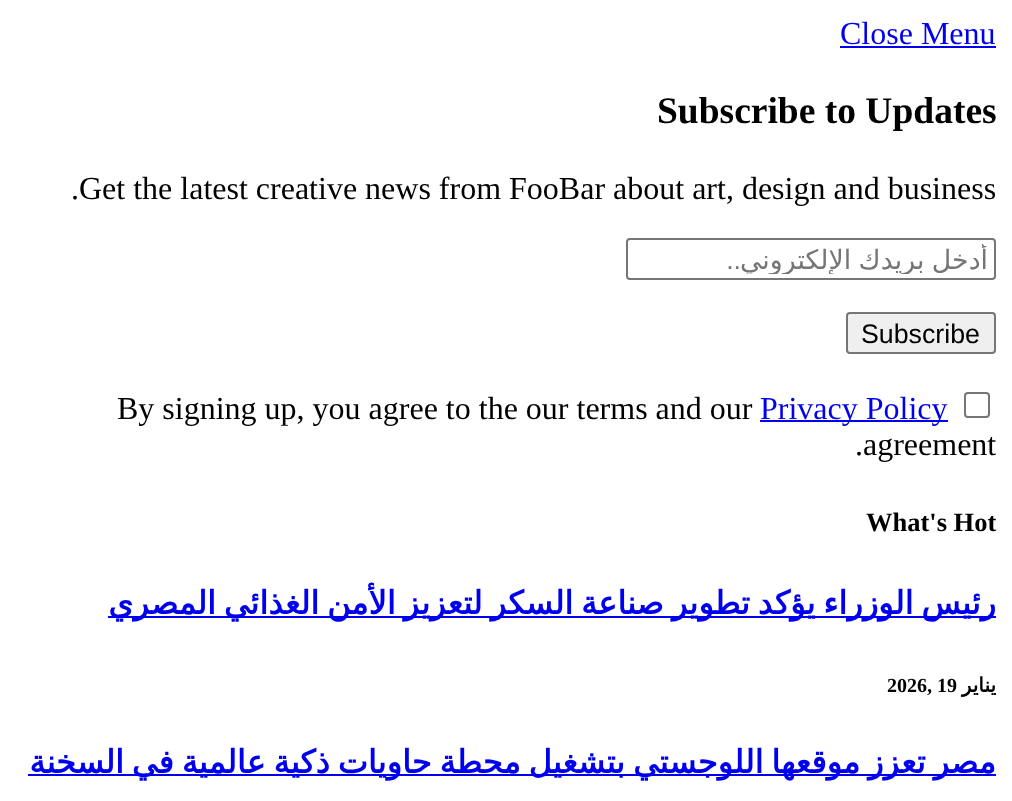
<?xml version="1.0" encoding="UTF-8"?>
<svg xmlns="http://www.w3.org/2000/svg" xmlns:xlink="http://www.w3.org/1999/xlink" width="1012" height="801">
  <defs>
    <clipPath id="clip1"><rect x="634" y="244" width="354" height="30" /></clipPath>
  </defs>
  <rect width="100%" height="100%" fill="#ffffff" />
  <rect x="840" y="46" width="156" height="2" fill="#0000ee" />
  <rect x="627" y="239" width="368" height="40" rx="3" fill="none" stroke="#767676" stroke-width="2" />
  <rect x="847" y="313" width="148" height="40" rx="3" fill="#efefef" stroke="#767676" stroke-width="2" />
  <rect x="760" y="420" width="188" height="2" fill="#0000ee" />
  <rect x="965" y="393" width="24" height="24" rx="3" fill="none" stroke="#767676" stroke-width="2" />
  <rect x="108" y="616" width="888" height="2" fill="#0000ee" />
  <rect x="28" y="774" width="968" height="2" fill="#0000ee" />
  <text x="840" y="44" style="font-family: Liberation Serif; font-size: 32px; fill: #0000ee">Close Menu</text>
  <text x="657" y="123" style="font-family: Liberation Serif; font-size: 37.5px; font-weight: bold; fill: #000000">Subscribe to Updates</text>
  <text x="71" y="199" style="font-family: Liberation Serif; font-size: 32px; fill: #000000">.Get the latest creative news from FooBar about art, design and business</text>
  <text x="741" y="269" style="font-family: Liberation Sans; font-size: 26.75px; direction: rtl; fill: #757575">..</text>
  <g clip-path="url(#clip1)">
    <text x="988" y="269" word-spacing="-1" style="font-family: DejaVu Sans; font-size: 26.75px; direction: rtl; fill: #757575">أدخل بريدك الإلكتروني</text>
  </g>
  <text x="861" y="343" style="font-family: Liberation Sans; font-size: 26.75px; fill: #000000">Subscribe</text>
  <text x="117" y="419" style="font-family: Liberation Serif; font-size: 32px; fill: #000000">By signing up, you agree to the our terms and our</text>
  <text x="760" y="419" style="font-family: Liberation Serif; font-size: 32px; fill: #0000ee">Privacy Policy</text>
  <text x="855" y="455" style="font-family: Liberation Serif; font-size: 32px; fill: #000000">.agreement</text>
  <text x="866" y="531" style="font-family: Liberation Serif; font-size: 26.5px; font-weight: bold; fill: #000000">What's Hot</text>
  <text x="996" y="614" word-spacing="-2.25" style="font-family: DejaVu Sans; font-size: 32px; font-weight: bold; direction: rtl; fill: #0000ee">رئيس الوزراء يؤكد تطوير صناعة السكر لتعزيز الأمن الغذائي المصري</text>
  <text x="887" y="692" style="font-family: Liberation Serif; font-size: 20px; font-weight: bold; fill: #000000">2026, 19</text>
  <text x="996" y="692" style="font-family: DejaVu Sans; font-size: 20px; font-weight: bold; direction: rtl; fill: #000000">يناير</text>
  <text x="996" y="773" word-spacing="-2.25" style="font-family: DejaVu Sans; font-size: 32px; font-weight: bold; direction: rtl; fill: #0000ee">مصر تعزز موقعها اللوجستي بتشغيل محطة حاويات ذكية عالمية في السخنة</text>
</svg>
